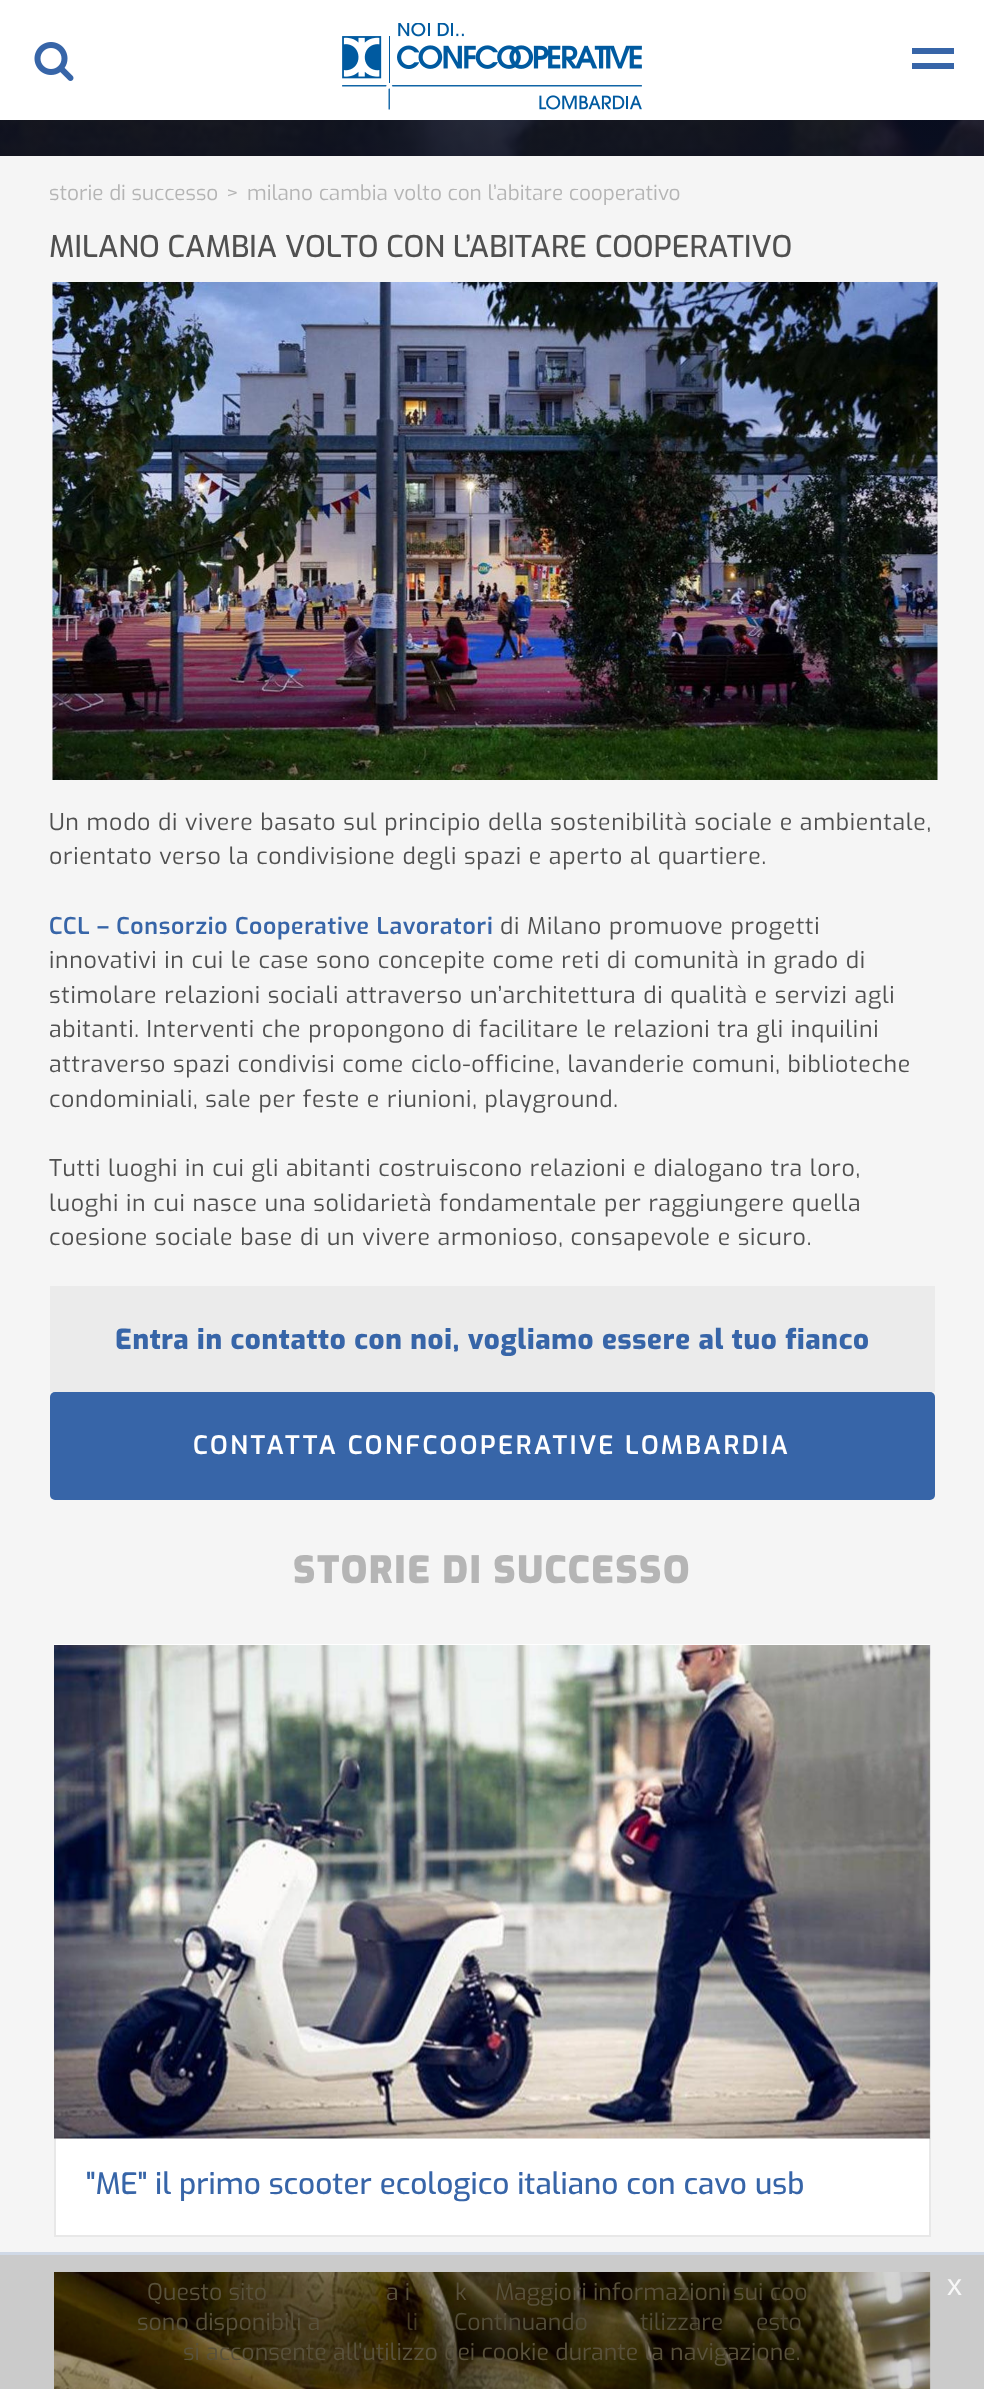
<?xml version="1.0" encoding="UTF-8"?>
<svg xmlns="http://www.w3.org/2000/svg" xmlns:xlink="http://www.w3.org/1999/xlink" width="984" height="2389">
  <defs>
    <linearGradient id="g1" gradientUnits="userSpaceOnUse" x1="492" y1="156" x2="492" y2="-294"><stop offset="0" stop-color="#0b1127" stop-opacity="0.8" /><stop offset="1" stop-color="#0b1127" stop-opacity="0.6" /></linearGradient>
  </defs>
  <rect width="100%" height="100%" fill="#ffffff" />
  <image x="34" y="42" width="40" height="39" xlink:href="image1.png" />
  <image x="342" y="23" width="300" height="87" xlink:href="image2.png" />
  <rect x="912" y="48" width="42" height="6" fill="#3765a8" />
  <rect x="912" y="63" width="42" height="6" fill="#3765a8" />
  <image x="983" y="120" width="1" height="36" xlink:href="image4.png" />
  <image x="0" y="120" width="984" height="36" xlink:href="image3.png" />
  <rect y="120" width="984" height="36" fill="url(#g1)" />
  <rect y="156" width="984" height="2096" fill="#f5f5f5" />
  <rect y="2255" width="984" height="134" fill="#cbcbcb" />
  <image x="52" y="282" width="886" height="498" xlink:href="image5.png" />
  <rect x="50" y="1286" width="885" height="106" fill="#ebebeb" />
  <rect x="50" y="1392" width="885" height="108" rx="5" fill="#3765a8" />
  <rect x="54" y="1644" width="876" height="591" fill="#ffffff" />
  <rect x="929" y="2138" width="2" height="99" fill="#e8e8e8" />
  <rect x="54" y="2235" width="876" height="2" fill="#e8e8e8" />
  <rect x="54" y="2138" width="2" height="99" fill="#e8e8e8" />
  <image x="54" y="1645" width="877" height="494" xlink:href="image6.png" />
  <image x="54" y="2272" width="877" height="117" xlink:href="image7.png" />
  <rect y="2252" width="984" height="3" fill="#d0d9e6" />
  <text x="49" y="200" style="font-family: Exo; font-size: 20.75px; fill: #b5b5b5">storie di successo</text>
  <text x="226" y="200" style="font-family: Exo; font-size: 20.75px; fill: #b5b5b5">&gt;</text>
  <text x="247" y="200" style="font-family: Exo; font-size: 20.75px; fill: #b5b5b5">milano cambia volto con l’abitare cooperativo</text>
  <text x="49" y="257" style="font-family: Exo; font-size: 30px; font-weight: 500; fill: #505050">MILANO CAMBIA VOLTO CON L’ABITARE COOPERATIVO</text>
  <text x="49" y="830" style="font-family: Exo; font-size: 23.1px; letter-spacing: 0.7px; fill: #505050">Un modo di vivere basato sul principio della sostenibilità sociale e ambientale,</text>
  <text x="49" y="864" style="font-family: Exo; font-size: 23.1px; letter-spacing: 0.7px; fill: #505050">orientato verso la condivisione degli spazi e aperto al quartiere.</text>
  <text x="49" y="934" style="font-family: Exo; font-size: 23.1px; font-weight: 600; letter-spacing: 0.7px; fill: #3765a8">CCL – Consorzio Cooperative Lavoratori</text>
  <text x="500" y="934" style="font-family: Exo; font-size: 23.1px; letter-spacing: 0.7px; fill: #505050">di Milano promuove progetti</text>
  <text x="49" y="968" style="font-family: Exo; font-size: 23.1px; letter-spacing: 0.7px; fill: #505050">innovativi in cui le case sono concepite come reti di comunità in grado di</text>
  <text x="49" y="1003" style="font-family: Exo; font-size: 23.1px; letter-spacing: 0.7px; fill: #505050">stimolare relazioni sociali attraverso un’architettura di qualità e servizi agli</text>
  <text x="49" y="1037" style="font-family: Exo; font-size: 23.1px; letter-spacing: 0.7px; fill: #505050">abitanti. Interventi che propongono di facilitare le relazioni tra gli inquilini</text>
  <text x="49" y="1072" style="font-family: Exo; font-size: 23.1px; letter-spacing: 0.7px; fill: #505050">attraverso spazi condivisi come ciclo-officine, lavanderie comuni, biblioteche</text>
  <text x="49" y="1107" style="font-family: Exo; font-size: 23.1px; letter-spacing: 0.7px; fill: #505050">condominiali, sale per feste e riunioni, playground.</text>
  <text x="49" y="1176" style="font-family: Exo; font-size: 23.1px; letter-spacing: 0.7px; fill: #505050">Tutti luoghi in cui gli abitanti costruiscono relazioni e dialogano tra loro,</text>
  <text x="49" y="1211" style="font-family: Exo; font-size: 23.1px; letter-spacing: 0.7px; fill: #505050">luoghi in cui nasce una solidarietà fondamentale per raggiungere quella</text>
  <text x="49" y="1245" style="font-family: Exo; font-size: 23.1px; letter-spacing: 0.7px; fill: #505050">coesione sociale base di un vivere armonioso, consapevole e sicuro.</text>
  <text x="115" y="1349" style="font-family: Exo; font-size: 27.75px; font-weight: 800; letter-spacing: 0.7px; fill: #3765a8">Entra in contatto con noi, vogliamo essere al tuo fianco</text>
  <text x="193" y="1454" style="font-family: Exo; font-size: 25.4px; font-weight: 600; letter-spacing: 2.55px; fill: #ffffff">CONTATTA CONFCOOPERATIVE LOMBARDIA</text>
  <text x="293" y="1583" style="font-family: Exo; font-size: 37.5px; font-weight: 900; letter-spacing: 1.5px; fill: #b5b5b5">STORIE DI SUCCESSO</text>
  <text x="86" y="2194" style="font-family: Exo; font-size: 29.7px; font-weight: 500; fill: #3765a8">"ME" il primo scooter ecologico italiano con cavo usb</text>
  <text x="147" y="2300" style="font-family: Exo; font-size: 23.1px; fill: #59513b">Questo sito</text>
  <text x="386" y="2300" style="font-family: Exo; font-size: 23.1px; fill: #59513b">a i</text>
  <text x="455" y="2300" style="font-family: Exo; font-size: 23.1px; fill: #59513b">k</text>
  <text x="495" y="2300" style="font-family: Exo; font-size: 23.1px; fill: #59513b">Maggiori informazioni sui coo</text>
  <text x="947" y="2295" style="font-family: Liberation Sans; font-size: 30px; fill: #f7f7f7">x</text>
  <text x="137" y="2330" style="font-family: Exo; font-size: 23.1px; fill: #59513b">sono disponibili a</text>
  <text x="406" y="2330" style="font-family: Exo; font-size: 23.1px; fill: #453b23">li</text>
  <text x="454" y="2330" style="font-family: Exo; font-size: 23.1px; fill: #534d39">Continuando</text>
  <text x="640" y="2330" style="font-family: Exo; font-size: 23.1px; fill: #534d39">tilizzare</text>
  <text x="756" y="2330" style="font-family: Exo; font-size: 23.1px; fill: #534d39">esto</text>
  <text x="183" y="2360" style="font-family: Exo; font-size: 23.1px; fill: #59513b">si acconsente all'utilizzo dei cookie durante la navigazione.</text>
</svg>
